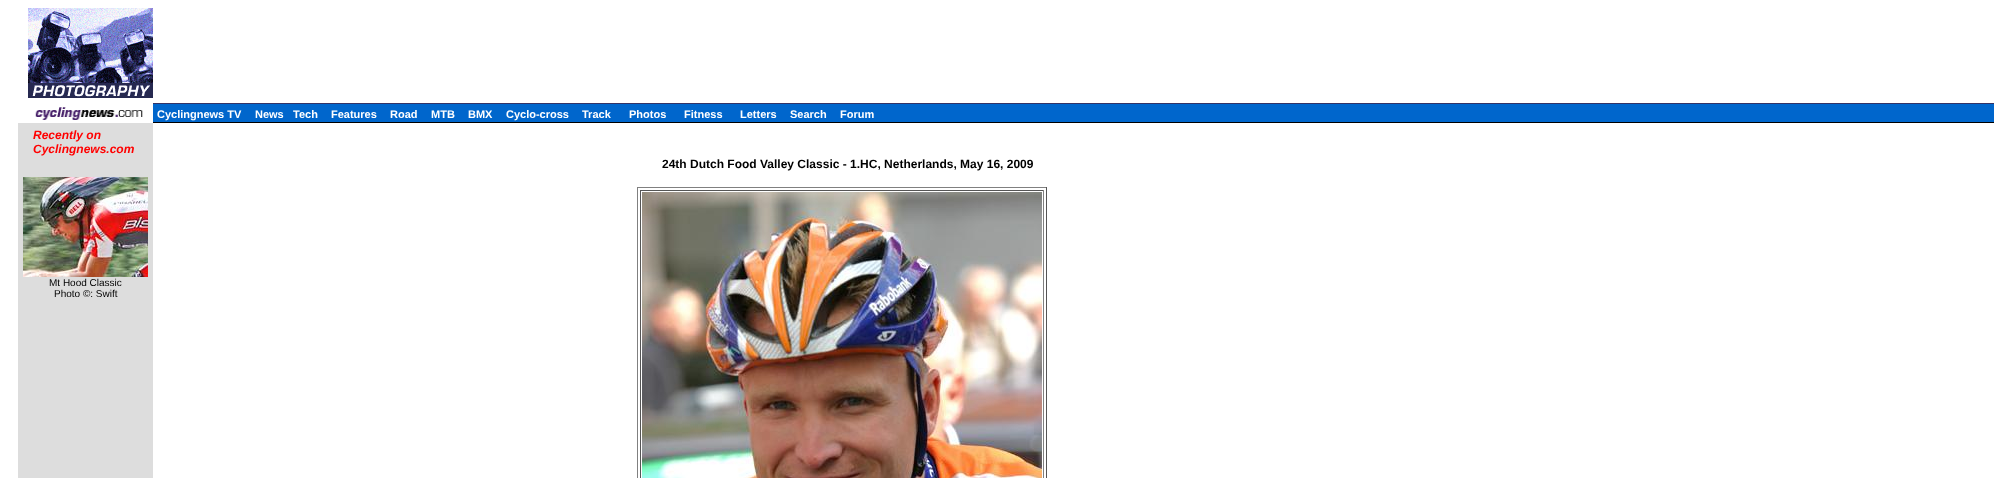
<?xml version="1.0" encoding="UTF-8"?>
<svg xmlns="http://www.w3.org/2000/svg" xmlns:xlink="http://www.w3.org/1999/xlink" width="2002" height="478">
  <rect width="100%" height="100%" fill="#ffffff" />
  <image x="28" y="8" width="125" height="90" xlink:href="image1.png" />
  <rect x="153" y="103" width="1841" height="1" fill="#333366" />
  <image x="35" y="107" width="108" height="13" xlink:href="image2.png" />
  <rect x="153" y="104" width="1841" height="18" fill="#0066cc" />
  <rect x="153" y="122" width="1841" height="1" fill="#000000" />
  <rect x="18" y="123" width="135" height="355" fill="#dddddd" />
  <image x="23" y="177" width="125" height="100" xlink:href="image3.png" />
  <rect x="637" y="187" width="410" height="1" fill="#808080" />
  <rect x="1046" y="187" width="1" height="291" fill="#555555" />
  <rect x="637" y="187" width="1" height="291" fill="#808080" />
  <rect x="640" y="190" width="404" height="1" fill="#555555" />
  <rect x="1043" y="190" width="1" height="288" fill="#808080" />
  <rect x="640" y="190" width="1" height="288" fill="#555555" />
  <image x="642" y="192" width="400" height="286" xlink:href="image4.png" />
  <text x="157" y="118" style="font-family: Liberation Sans; font-size: 11px; font-weight: bold; fill: #ffffff">Cyclingnews TV</text>
  <text x="255" y="118" style="font-family: Liberation Sans; font-size: 11px; font-weight: bold; fill: #ffffff">News</text>
  <text x="293" y="118" style="font-family: Liberation Sans; font-size: 11px; font-weight: bold; fill: #ffffff">Tech</text>
  <text x="331" y="118" style="font-family: Liberation Sans; font-size: 11px; font-weight: bold; fill: #ffffff">Features</text>
  <text x="390" y="118" style="font-family: Liberation Sans; font-size: 11px; font-weight: bold; fill: #ffffff">Road</text>
  <text x="431" y="118" style="font-family: Liberation Sans; font-size: 11px; font-weight: bold; fill: #ffffff">MTB</text>
  <text x="468" y="118" style="font-family: Liberation Sans; font-size: 11px; font-weight: bold; fill: #ffffff">BMX</text>
  <text x="506" y="118" style="font-family: Liberation Sans; font-size: 11px; font-weight: bold; fill: #ffffff">Cyclo-cross</text>
  <text x="582" y="118" style="font-family: Liberation Sans; font-size: 11px; font-weight: bold; fill: #ffffff">Track</text>
  <text x="629" y="118" style="font-family: Liberation Sans; font-size: 11px; font-weight: bold; fill: #ffffff">Photos</text>
  <text x="684" y="118" style="font-family: Liberation Sans; font-size: 11px; font-weight: bold; fill: #ffffff">Fitness</text>
  <text x="740" y="118" style="font-family: Liberation Sans; font-size: 11px; font-weight: bold; fill: #ffffff">Letters</text>
  <text x="790" y="118" style="font-family: Liberation Sans; font-size: 11px; font-weight: bold; fill: #ffffff">Search</text>
  <text x="840" y="118" style="font-family: Liberation Sans; font-size: 11px; font-weight: bold; fill: #ffffff">Forum</text>
  <text x="33" y="139" style="font-family: Liberation Sans; font-size: 12px; font-weight: bold; font-style: italic; fill: #ff0000">Recently on</text>
  <text x="33" y="153" style="font-family: Liberation Sans; font-size: 12px; font-weight: bold; font-style: italic; fill: #ff0000">Cyclingnews.com</text>
  <text x="49" y="286" style="font-family: Liberation Sans; font-size: 10px; fill: #000000">Mt Hood Classic</text>
  <text x="54" y="297" style="font-family: Liberation Sans; font-size: 10px; fill: #000000">Photo ©: Swift</text>
  <text x="662" y="168" style="font-family: Liberation Sans; font-size: 12px; font-weight: bold; fill: #000000">24th Dutch Food Valley Classic - 1.HC, Netherlands, May 16, 2009</text>
</svg>
